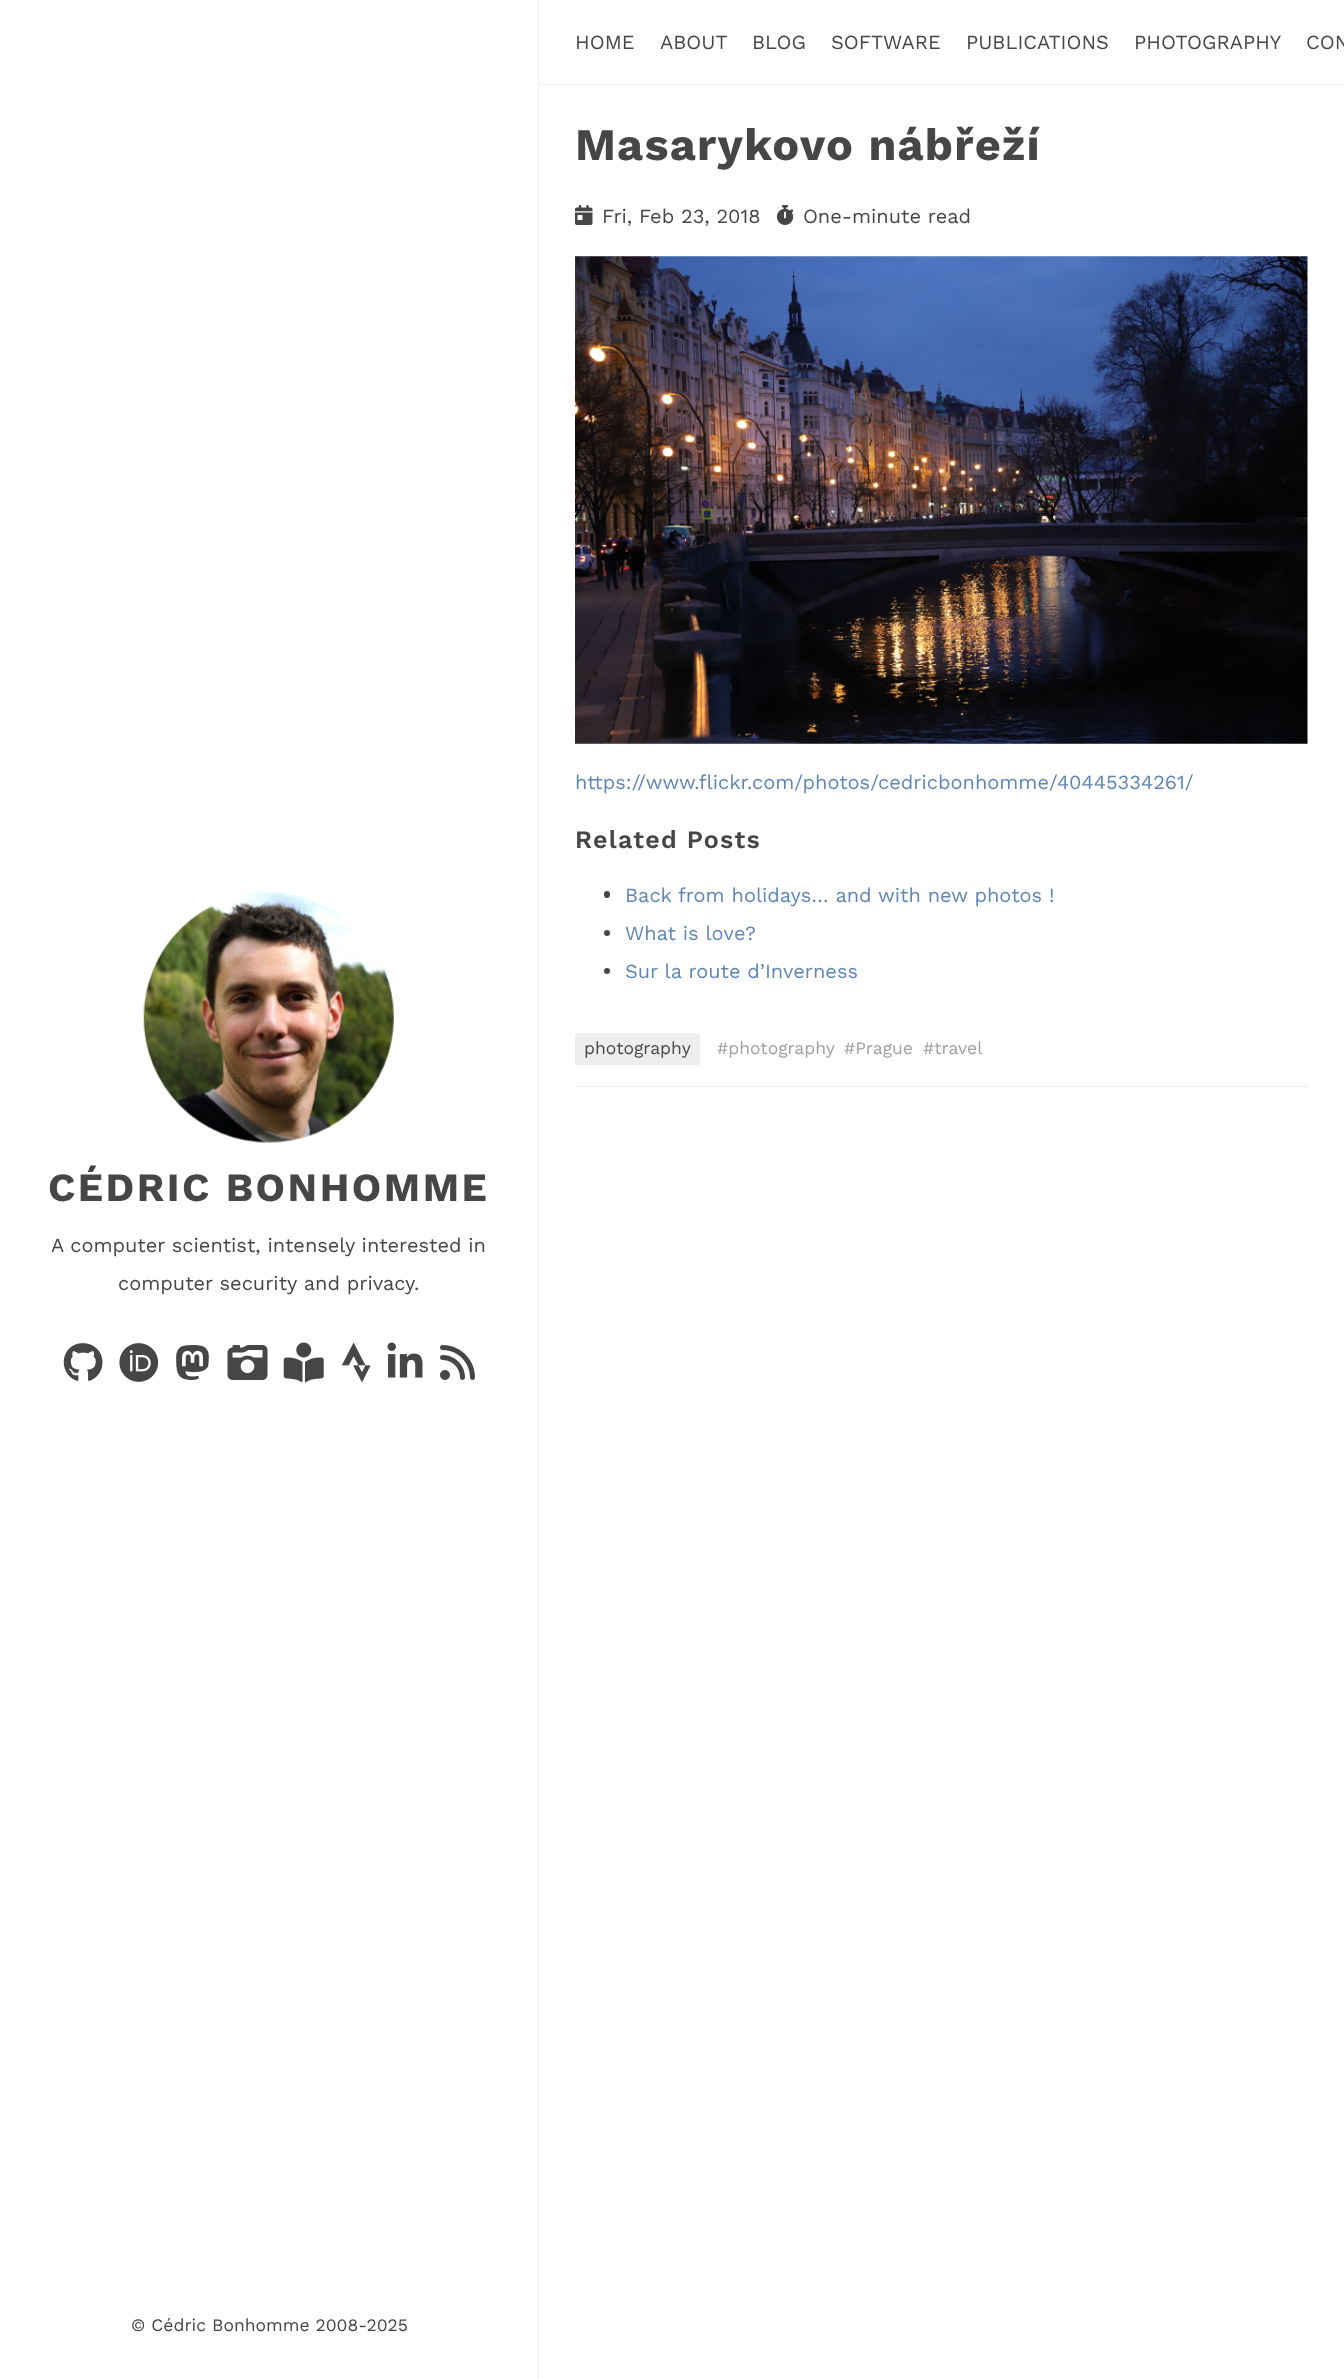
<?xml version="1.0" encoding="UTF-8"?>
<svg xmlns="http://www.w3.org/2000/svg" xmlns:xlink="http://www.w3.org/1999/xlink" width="1344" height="2379">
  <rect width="100%" height="100%" fill="#ffffff" />
  <rect x="538" y="84" width="806" height="1" fill="#eeeeee" />
  <image x="575" y="205" width="18" height="20" xlink:href="image1.png" />
  <image x="776" y="205" width="18" height="20" xlink:href="image2.png" />
  <image x="575" y="256" width="733" height="488" xlink:href="image3.png" />
  <rect x="604" y="891" width="6" height="7" rx="3" fill="#464646" />
  <circle cx="607" cy="933" r="3" fill="#464646" />
  <circle cx="607" cy="971" r="3" fill="#464646" />
  <rect x="575" y="1086" width="733" height="1" fill="#eeeeee" />
  <rect x="575.5" y="1033.5" width="124" height="31" rx="2" fill="#eeeeee" stroke="#eeeeee" />
  <rect x="538" width="1" height="2379" fill="#eeeeee" />
  <image x="143" y="892" width="251" height="251" xlink:href="image4.png" />
  <image x="63" y="1343" width="40" height="38" xlink:href="image5.png" />
  <image x="119" y="1343" width="40" height="39" xlink:href="image6.png" />
  <image x="176" y="1345" width="33" height="35" xlink:href="image7.png" />
  <image x="227" y="1345" width="41" height="35" xlink:href="image8.png" />
  <image x="283" y="1342" width="41" height="41" xlink:href="image9.png" />
  <image x="341" y="1342" width="30" height="41" xlink:href="image10.png" />
  <image x="387" y="1342" width="36" height="36" xlink:href="image11.png" />
  <image x="440" y="1345" width="35" height="35" xlink:href="image12.png" />
  <text x="575" y="49" style="font-family: Work Sans; font-size: 20px; fill: #464646">HOME</text>
  <text x="660" y="49" style="font-family: Work Sans; font-size: 20px; fill: #464646">ABOUT</text>
  <text x="752" y="49" style="font-family: Work Sans; font-size: 20px; fill: #464646">BLOG</text>
  <text x="831" y="49" style="font-family: Work Sans; font-size: 20px; fill: #464646">SOFTWARE</text>
  <text x="966" y="49" style="font-family: Work Sans; font-size: 20px; fill: #464646">PUBLICATIONS</text>
  <text x="1134" y="49" style="font-family: Work Sans; font-size: 20px; fill: #464646">PHOTOGRAPHY</text>
  <text x="1306" y="49" style="font-family: Work Sans; font-size: 20px; fill: #464646">CON</text>
  <text x="575" y="160" style="font-family: Work Sans; font-size: 45px; font-weight: bold; letter-spacing: 1.25px; fill: #464646">Masarykovo nábřeží</text>
  <text x="602" y="223" style="font-family: Work Sans; font-size: 20px; fill: #464646">Fri, Feb 23, 2018</text>
  <text x="803" y="223" style="font-family: Work Sans; font-size: 20px; fill: #464646">One-minute read</text>
  <text x="575" y="789" style="font-family: Work Sans; font-size: 20px; fill: #6086b4">https://www.flickr.com/photos/cedricbonhomme/40445334261/</text>
  <text x="575" y="848" style="font-family: Work Sans; font-size: 25px; font-weight: 600; letter-spacing: 1.25px; fill: #464646">Related Posts</text>
  <text x="625" y="902" style="font-family: Work Sans; font-size: 20px; fill: #6086b4">Back from holidays… and with new photos !</text>
  <text x="625" y="940" style="font-family: Work Sans; font-size: 20px; fill: #6086b4">What is love?</text>
  <text x="625" y="978" style="font-family: Work Sans; font-size: 20px; fill: #6086b4">Sur la route d’Inverness</text>
  <text x="584" y="1054" style="font-family: Work Sans; font-size: 17.5px; fill: #464646">photography</text>
  <text x="717" y="1054" style="font-family: Work Sans; font-size: 17.5px; fill: #9f9f9f">#photography</text>
  <text x="844" y="1054" style="font-family: Work Sans; font-size: 17.5px; fill: #9f9f9f">#Prague</text>
  <text x="923" y="1054" style="font-family: Work Sans; font-size: 17.5px; fill: #9f9f9f">#travel</text>
  <text x="48" y="1201" style="font-family: Work Sans; font-size: 40px; font-weight: bold; letter-spacing: 2.5px; fill: #464646">CÉDRIC BONHOMME</text>
  <text x="51" y="1252" style="font-family: Work Sans; font-size: 20px; fill: #464646">A computer scientist, intensely interested in</text>
  <text x="118" y="1290" style="font-family: Work Sans; font-size: 20px; fill: #464646">computer security and privacy.</text>
  <text x="131" y="2331" style="font-family: Work Sans; font-size: 17.5px; fill: #464646">© Cédric Bonhomme 2008-2025</text>
</svg>
